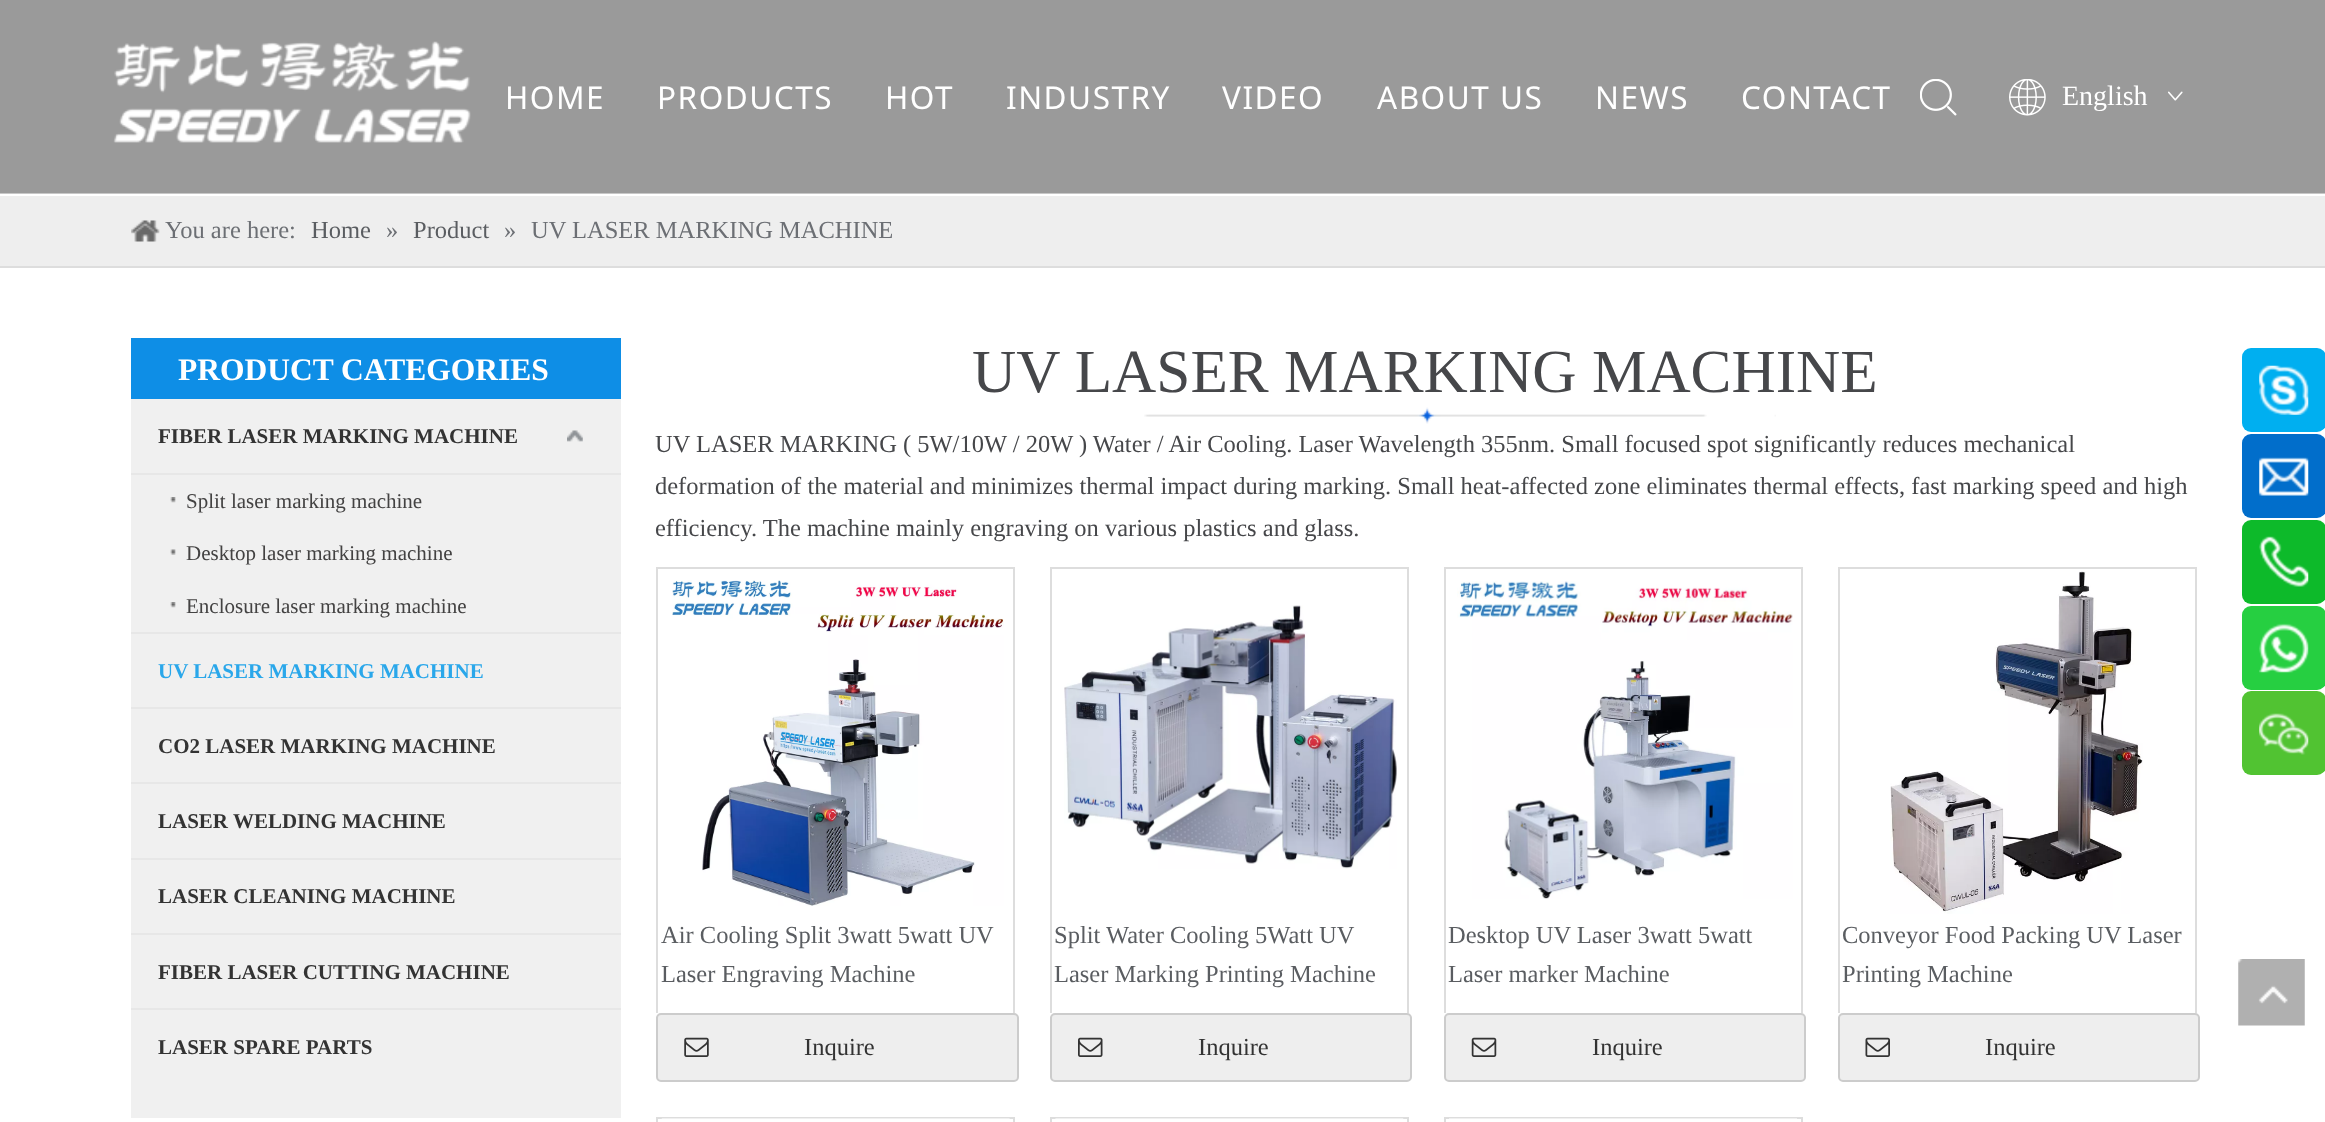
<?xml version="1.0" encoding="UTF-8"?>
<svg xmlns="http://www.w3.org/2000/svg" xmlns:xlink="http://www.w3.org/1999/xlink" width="2325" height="1122">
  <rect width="100%" height="100%" fill="#ffffff" />
  <rect width="2325" height="193" fill="#9a9a9a" />
  <rect y="193" width="2325" height="1" fill="#c7c7c7" />
  <image x="113" y="41" width="358" height="102" xlink:href="image1.png" />
  <image x="1920" y="79" width="37" height="37" xlink:href="image2.png" />
  <image x="2009" y="79" width="37" height="37" xlink:href="image3.png" />
  <image x="2168" y="91" width="15" height="10" xlink:href="image4.png" />
  <rect y="196" width="2325" height="70" fill="#eeeeee" />
  <rect y="266" width="2325" height="2" fill="#dddddd" />
  <image x="131" y="220" width="29" height="22" xlink:href="image5.png" />
  <rect x="131" y="338" width="490" height="61" fill="#0e8ee6" />
  <rect x="131" y="399" width="490" height="719" fill="#f0f0f0" />
  <rect x="131" y="473" width="490" height="2" fill="#e7e7e7" />
  <image x="567" y="430" width="16" height="12" xlink:href="image6.png" />
  <image x="170" y="497" width="6" height="6" xlink:href="image7.png" />
  <image x="170" y="549" width="6" height="6" xlink:href="image8.png" />
  <image x="170" y="602" width="6" height="6" xlink:href="image7.png" />
  <rect x="131" y="632" width="490" height="2" fill="#e7e7e7" />
  <rect x="131" y="707" width="490" height="2" fill="#e7e7e7" />
  <rect x="131" y="782" width="490" height="2" fill="#e7e7e7" />
  <rect x="131" y="858" width="490" height="2" fill="#e7e7e7" />
  <rect x="131" y="933" width="490" height="2" fill="#e7e7e7" />
  <rect x="131" y="1008" width="490" height="2" fill="#e7e7e7" />
  <image x="1144" y="407" width="632" height="17" xlink:href="image9.png" />
  <rect x="656" y="567" width="359" height="2" fill="#dddddd" />
  <rect x="1013" y="567" width="2" height="446" fill="#dddddd" />
  <rect x="656" y="567" width="2" height="446" fill="#dddddd" />
  <image x="672" y="580" width="332" height="326" xlink:href="image10.png" />
  <rect x="657" y="1014" width="361" height="67" rx="4" fill="#eeeeee" stroke="#cccccc" stroke-width="2" />
  <image x="684" y="1037" width="25" height="20" xlink:href="image11.png" />
  <rect x="1050" y="567" width="359" height="2" fill="#dddddd" />
  <rect x="1407" y="567" width="2" height="446" fill="#dddddd" />
  <rect x="1050" y="567" width="2" height="446" fill="#dddddd" />
  <image x="1064" y="605" width="333" height="264" xlink:href="image12.png" />
  <rect x="1051" y="1014" width="360" height="67" rx="4" fill="#eeeeee" stroke="#cccccc" stroke-width="2" />
  <image x="1078" y="1037" width="25" height="20" xlink:href="image13.png" />
  <rect x="1444" y="567" width="359" height="2" fill="#dddddd" />
  <rect x="1801" y="567" width="2" height="446" fill="#dddddd" />
  <rect x="1444" y="567" width="2" height="446" fill="#dddddd" />
  <image x="1457" y="581" width="336" height="318" xlink:href="image14.png" />
  <rect x="1445" y="1014" width="360" height="67" rx="4" fill="#eeeeee" stroke="#cccccc" stroke-width="2" />
  <image x="1471" y="1037" width="26" height="20" xlink:href="image15.png" />
  <rect x="1838" y="567" width="358" height="2" fill="#dddddd" />
  <rect x="2195" y="567" width="2" height="446" fill="#dddddd" />
  <rect x="1838" y="567" width="2" height="446" fill="#dddddd" />
  <image x="1890" y="571" width="253" height="343" xlink:href="image16.png" />
  <rect x="1839" y="1014" width="360" height="67" rx="4" fill="#eeeeee" stroke="#cccccc" stroke-width="2" />
  <image x="1865" y="1037" width="25" height="20" xlink:href="image17.png" />
  <rect x="656" y="1117" width="359" height="2" fill="#dddddd" />
  <rect x="1013" y="1117" width="2" height="5" fill="#dddddd" />
  <rect x="656" y="1117" width="2" height="5" fill="#dddddd" />
  <image x="661" y="1118" width="349" height="1" xlink:href="image18.png" />
  <rect x="1050" y="1117" width="359" height="2" fill="#dddddd" />
  <rect x="1407" y="1117" width="2" height="5" fill="#dddddd" />
  <rect x="1050" y="1117" width="2" height="5" fill="#dddddd" />
  <image x="1055" y="1118" width="349" height="1" xlink:href="image19.png" />
  <rect x="1444" y="1117" width="359" height="2" fill="#dddddd" />
  <rect x="1801" y="1117" width="2" height="5" fill="#dddddd" />
  <rect x="1444" y="1117" width="2" height="5" fill="#dddddd" />
  <rect x="1449" y="1118" width="348" height="1" fill="#f0f0f0" />
  <rect x="2242" y="348" width="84" height="84" rx="9" fill="#00aff0" />
  <image x="2259" y="365" width="50" height="50" xlink:href="image20.png" />
  <rect x="2242" y="434" width="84" height="84" rx="9" fill="#016ecb" />
  <image x="2259" y="457" width="50" height="39" xlink:href="image21.png" />
  <rect x="2242" y="520" width="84" height="84" rx="9" fill="#0dba2a" />
  <image x="2259" y="536" width="50" height="51" xlink:href="image22.png" />
  <rect x="2242" y="606" width="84" height="84" rx="9" fill="#26cf41" />
  <image x="2259" y="623" width="50" height="50" xlink:href="image23.png" />
  <rect x="2242" y="691" width="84" height="84" rx="9" fill="#51c332" />
  <image x="2259" y="713" width="50" height="42" xlink:href="image24.png" />
  <image x="2238" y="959" width="67" height="67" xlink:href="image25.png" />
  <text x="505" y="109" style="font-family: Noto Sans; font-size: 31.5px; letter-spacing: 1.5px; fill: #ffffff">HOME</text>
  <text x="657" y="109" style="font-family: Noto Sans; font-size: 31.5px; letter-spacing: 1.5px; fill: #ffffff">PRODUCTS</text>
  <text x="885" y="109" style="font-family: Noto Sans; font-size: 31.5px; letter-spacing: 1.5px; fill: #ffffff">HOT</text>
  <text x="1006" y="109" style="font-family: Noto Sans; font-size: 31.5px; letter-spacing: 1.5px; fill: #ffffff">INDUSTRY</text>
  <text x="1222" y="109" style="font-family: Noto Sans; font-size: 31.5px; letter-spacing: 1.5px; fill: #ffffff">VIDEO</text>
  <text x="1377" y="109" style="font-family: Noto Sans; font-size: 31.5px; letter-spacing: 1.5px; fill: #ffffff">ABOUT US</text>
  <text x="1595" y="109" style="font-family: Noto Sans; font-size: 31.5px; letter-spacing: 1.5px; fill: #ffffff">NEWS</text>
  <text x="1741" y="109" style="font-family: Noto Sans; font-size: 31.5px; letter-spacing: 1.5px; fill: #ffffff">CONTACT</text>
  <text x="2062" y="105" style="font-family: Liberation Serif; font-size: 28px; fill: #ffffff">English</text>
  <text x="165" y="238" style="font-family: Liberation Serif; font-size: 24.5px; fill: #6c6f74">You are here:</text>
  <text x="311" y="238" style="font-family: Liberation Serif; font-size: 24.5px; fill: #5a5d61">Home</text>
  <text x="386" y="238" style="font-family: Liberation Serif; font-size: 24.5px; fill: #6c6f74">»</text>
  <text x="413" y="238" style="font-family: Liberation Serif; font-size: 24.5px; fill: #5a5d61">Product</text>
  <text x="504" y="238" style="font-family: Liberation Serif; font-size: 24.5px; fill: #6c6f74">»</text>
  <text x="531" y="238" style="font-family: Liberation Serif; font-size: 24.5px; fill: #6c6f74">UV LASER MARKING MACHINE</text>
  <text x="178" y="380" style="font-family: Liberation Serif; font-size: 31.5px; font-weight: bold; fill: #ffffff">PRODUCT CATEGORIES</text>
  <text x="158" y="443" style="font-family: Liberation Serif; font-size: 21px; font-weight: bold; fill: #333333">FIBER LASER MARKING MACHINE</text>
  <text x="186" y="508" style="font-family: Liberation Serif; font-size: 21px; fill: #434242">Split laser marking machine</text>
  <text x="186" y="560" style="font-family: Liberation Serif; font-size: 21px; fill: #434242">Desktop laser marking machine</text>
  <text x="186" y="613" style="font-family: Liberation Serif; font-size: 21px; fill: #434242">Enclosure laser marking machine</text>
  <text x="158" y="678" style="font-family: Liberation Serif; font-size: 21px; font-weight: bold; fill: #2aa7ea">UV LASER MARKING MACHINE</text>
  <text x="158" y="753" style="font-family: Liberation Serif; font-size: 21px; font-weight: bold; fill: #333333">CO2 LASER MARKING MACHINE</text>
  <text x="158" y="828" style="font-family: Liberation Serif; font-size: 21px; font-weight: bold; fill: #333333">LASER WELDING MACHINE</text>
  <text x="158" y="903" style="font-family: Liberation Serif; font-size: 21px; font-weight: bold; fill: #333333">LASER CLEANING MACHINE</text>
  <text x="158" y="979" style="font-family: Liberation Serif; font-size: 21px; font-weight: bold; fill: #333333">FIBER LASER CUTTING MACHINE</text>
  <text x="158" y="1054" style="font-family: Liberation Serif; font-size: 21px; font-weight: bold; fill: #333333">LASER SPARE PARTS</text>
  <text x="972" y="392" style="font-family: Liberation Serif; font-size: 61.25px; fill: #46474a">UV LASER MARKING MACHINE</text>
  <text x="655" y="452" style="font-family: Liberation Serif; font-size: 24.5px; fill: #46474a">UV LASER MARKING ( 5W/10W / 20W ) Water / Air Cooling. Laser Wavelength 355nm. Small focused spot significantly reduces mechanical</text>
  <text x="655" y="494" style="font-family: Liberation Serif; font-size: 24.5px; fill: #46474a">deformation of the material and minimizes thermal impact during marking. Small heat-affected zone eliminates thermal effects, fast marking speed and high</text>
  <text x="655" y="536" style="font-family: Liberation Serif; font-size: 24.5px; fill: #46474a">efficiency. The machine mainly engraving on various plastics and glass.</text>
  <text x="661" y="943" style="font-family: Liberation Serif; font-size: 24.5px; fill: #5a5d61">Air Cooling Split 3watt 5watt UV</text>
  <text x="661" y="982" style="font-family: Liberation Serif; font-size: 24.5px; fill: #5a5d61">Laser Engraving Machine</text>
  <text x="804" y="1055" style="font-family: Liberation Serif; font-size: 24.5px; fill: #333333">Inquire</text>
  <text x="1054" y="943" style="font-family: Liberation Serif; font-size: 24.5px; fill: #5a5d61">Split Water Cooling 5Watt UV</text>
  <text x="1054" y="982" style="font-family: Liberation Serif; font-size: 24.5px; fill: #5a5d61">Laser Marking Printing Machine</text>
  <text x="1198" y="1055" style="font-family: Liberation Serif; font-size: 24.5px; fill: #333333">Inquire</text>
  <text x="1448" y="943" style="font-family: Liberation Serif; font-size: 24.5px; fill: #5a5d61">Desktop UV Laser 3watt 5watt</text>
  <text x="1448" y="982" style="font-family: Liberation Serif; font-size: 24.5px; fill: #5a5d61">Laser marker Machine</text>
  <text x="1592" y="1055" style="font-family: Liberation Serif; font-size: 24.5px; fill: #333333">Inquire</text>
  <text x="1842" y="943" style="font-family: Liberation Serif; font-size: 24.5px; fill: #5a5d61">Conveyor Food Packing UV Laser</text>
  <text x="1842" y="982" style="font-family: Liberation Serif; font-size: 24.5px; fill: #5a5d61">Printing Machine</text>
  <text x="1985" y="1055" style="font-family: Liberation Serif; font-size: 24.5px; fill: #333333">Inquire</text>
</svg>
